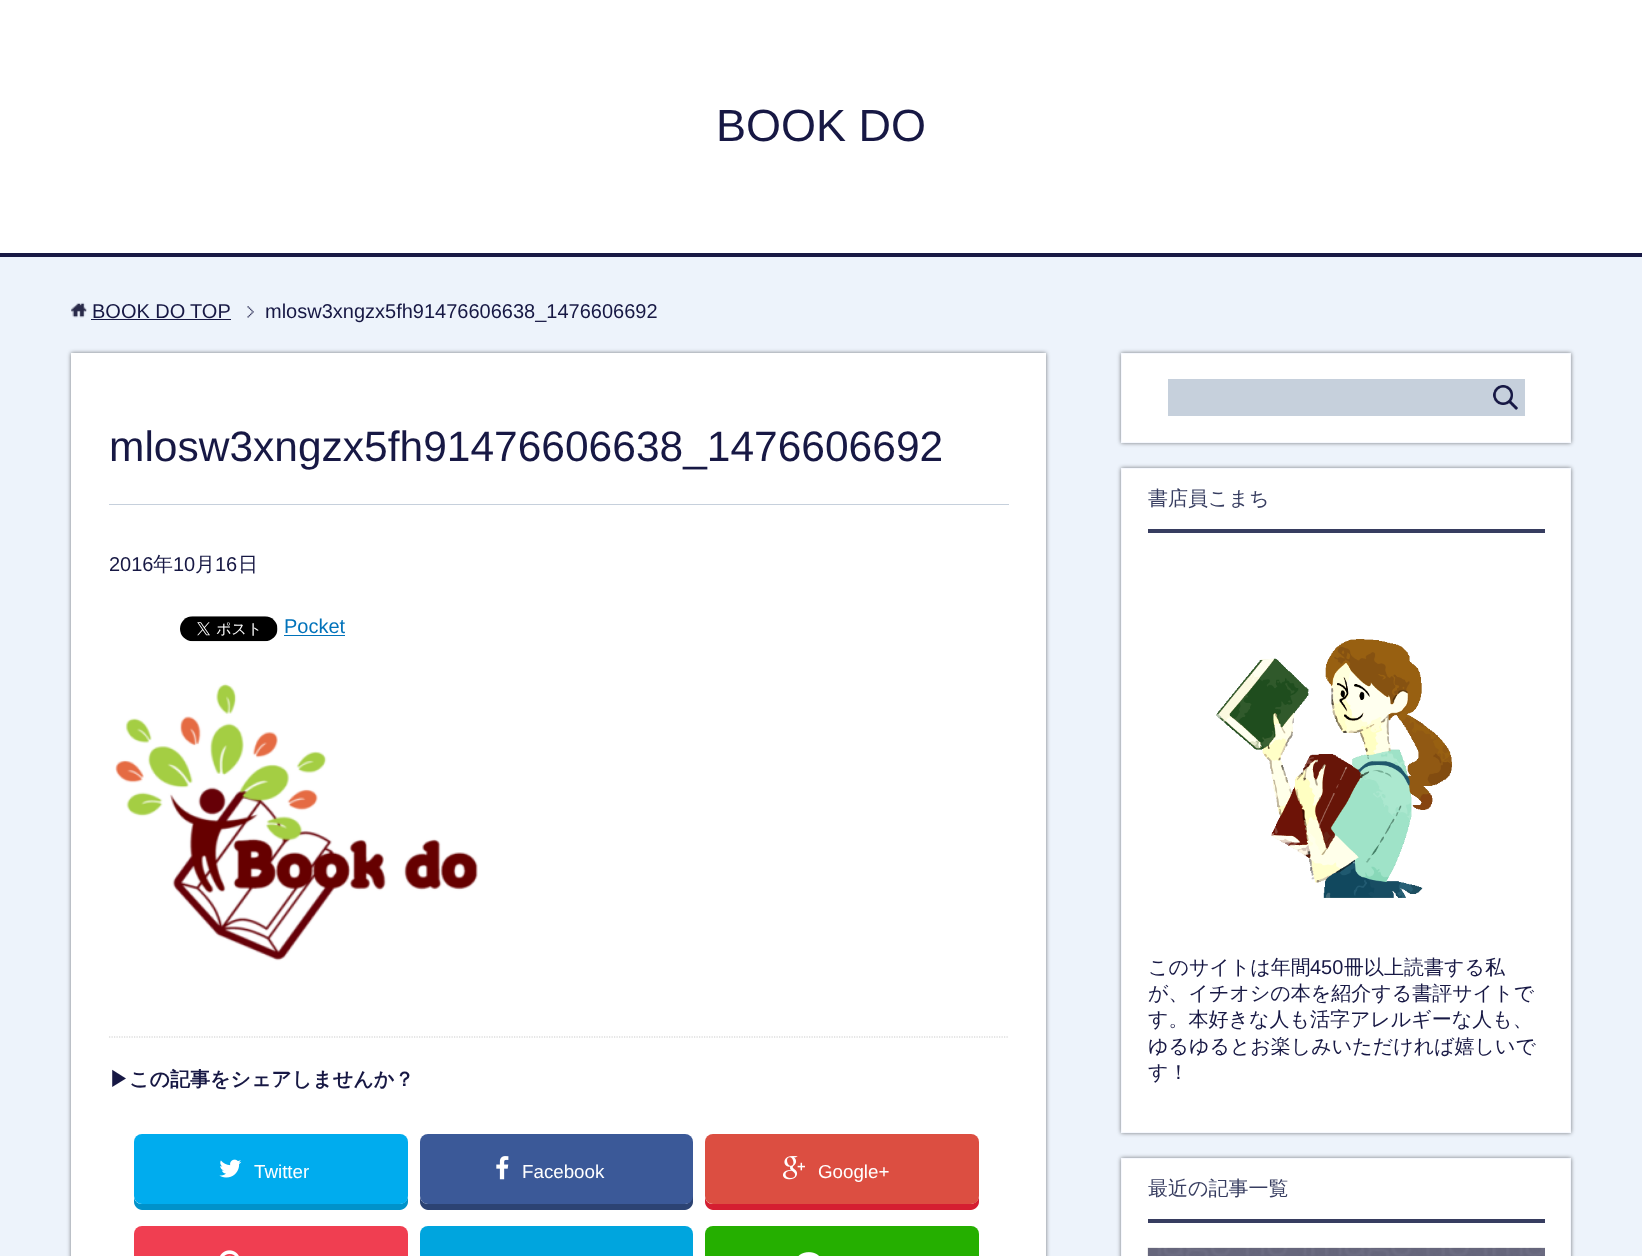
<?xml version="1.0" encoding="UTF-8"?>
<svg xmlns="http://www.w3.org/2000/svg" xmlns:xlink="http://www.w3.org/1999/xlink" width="1642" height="1256">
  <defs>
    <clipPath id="clip1"><path d="M 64 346 h 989 v 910 h -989 z m 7 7 h 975 v 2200 h -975 z" clip-rule="evenodd" /></clipPath>
  </defs>
  <rect width="100%" height="100%" fill="#edf3fb" />
  <rect width="1642" height="253" fill="#ffffff" />
  <rect y="253" width="1642" height="4" fill="#181944" />
  <image x="247" y="306" width="7" height="12" xlink:href="image1.png" />
  <image x="71" y="302" width="16" height="16" xlink:href="image2.png" />
  <rect x="91" y="319" width="140" height="1" fill="#171844" />
  <rect x="71" y="353" width="975" height="903" fill="#ffffff" />
  <g clip-path="url(#clip1)">
    <rect x="71" y="353" width="975" height="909" fill="#000000" fill-opacity="0.5" filter="blur(2px)" />
  </g>
  <rect x="109" y="504" width="900" height="1" fill="#c6d0dc" />
  <image x="180" y="616" width="98" height="26" xlink:href="image3.png" />
  <rect x="284" y="635" width="61" height="1" fill="#0072ba" />
  <image x="115" y="683" width="363" height="278" xlink:href="image4.png" />
  <path d="M 109 1037 h 900" fill="none" stroke="#cccccc" stroke-width="1.2" stroke-dasharray="1.25 1.25" />
  <path d="M 134 1198 v 4 c 0 4 4 8 8 8 h 258 c 4 0 8 -4 8 -8 v -54 v -3 v 51 c 0 4 -4 8 -8 8 h -259 c -3 0 -6 -3 -7 -6 z" fill="#0092ca" />
  <rect x="134" y="1134" width="274" height="70" rx="8" fill="#00acee" />
  <image x="219" y="1159" width="23" height="19" xlink:href="image5.png" />
  <path d="M 420 1196 v 6 c 0 4 4 8 8 8 h 257 c 4 0 8 -4 8 -8 v -54 l -1 -3 v 51 c 0 4 -3 8 -7 8 h -257 c -5 0 -8 -4 -8 -8 z" fill="#2c4373" />
  <rect x="420" y="1134" width="273" height="70" rx="8" fill="#3b5998" />
  <image x="496" y="1156" width="13" height="24" xlink:href="image6.png" />
  <path d="M 705 1196 v 6 c 0 4 4 8 8 8 h 258 c 4 0 8 -4 8 -8 v -56 v 50 c 0 4 -4 8 -8 8 h -259 c -4 0 -7 -4 -7 -8 z" fill="#d51e31" />
  <rect x="705" y="1134" width="274" height="70" rx="8" fill="#dc4e41" />
  <image x="783" y="1156" width="22" height="24" xlink:href="image7.png" />
  <rect x="134" y="1226" width="274" height="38" rx="8" fill="#f03e51" />
  <image x="220" y="1250" width="19" height="6" xlink:href="image8.png" />
  <rect x="420" y="1226" width="273" height="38" rx="8" fill="#00a5de" />
  <rect x="705" y="1226" width="274" height="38" rx="8" fill="#25af00" />
  <image x="798" y="1252" width="21" height="4" xlink:href="image9.png" />
  <rect x="1121" y="353" width="450" height="90" fill="#000000" fill-opacity="0.5" filter="blur(2px)" />
  <rect x="1121.5" y="353.5" width="449" height="89" fill="#ffffff" stroke="#f6f8fe" />
  <rect x="1168" y="379" width="357" height="37" fill="#c6d0dc" />
  <image x="1493" y="385" width="25" height="25" xlink:href="image10.png" />
  <rect x="1121" y="468" width="450" height="665" fill="#000000" fill-opacity="0.5" filter="blur(2px)" />
  <rect x="1121.5" y="468.5" width="449" height="664" fill="#ffffff" stroke="#f6f8fe" />
  <rect x="1148" y="529" width="397" height="4" fill="#373d60" />
  <image x="1216" y="639" width="236" height="259" xlink:href="image11.png" />
  <rect x="1121" y="1158" width="450" height="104" fill="#000000" fill-opacity="0.5" filter="blur(2px)" />
  <rect x="1121.5" y="1158.5" width="449" height="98" fill="#ffffff" stroke="#f6f8fe" />
  <rect x="1148" y="1219" width="397" height="4" fill="#373d60" />
  <image x="1147" y="1247" width="398" height="9" xlink:href="image12.png" />
  <rect x="1148" y="1248" width="397" height="8" fill="#171844" fill-opacity="0.5" />
  <text x="716" y="141" style="font-family: Liberation Sans; font-size: 45px; fill: #171844">BOOK DO</text>
  <text x="92" y="318" style="font-family: Liberation Sans; font-size: 20px; fill: #171844">BOOK DO</text>
  <text x="190" y="318" style="font-family: Liberation Sans; font-size: 20px; fill: #171844">TOP</text>
  <text x="265" y="318" style="font-family: Liberation Sans; font-size: 20px; fill: #171844">mlosw3xngzx5fh91476606638_1476606692</text>
  <text x="109" y="461" style="font-family: Liberation Sans; font-size: 42.5px; fill: #171844">mlosw3xngzx5fh91476606638_1476606692</text>
  <text x="109" y="571" style="font-family: Liberation Sans; font-size: 20px; fill: #171844">2016</text>
  <text x="153" y="571" style="font-family: WenQuanYi Zen Hei; font-size: 20px; font-weight: 500; fill: #171844">年</text>
  <text x="173" y="571" style="font-family: Liberation Sans; font-size: 20px; fill: #171844">10</text>
  <text x="195" y="571" style="font-family: WenQuanYi Zen Hei; font-size: 20px; font-weight: 500; fill: #171844">月</text>
  <text x="215" y="571" style="font-family: Liberation Sans; font-size: 20px; fill: #171844">16</text>
  <text x="238" y="571" style="font-family: WenQuanYi Zen Hei; font-size: 20px; font-weight: 500; fill: #171844">日</text>
  <text x="284" y="633" style="font-family: Liberation Sans; font-size: 20px; fill: #0072ba">Pocket</text>
  <text x="109" y="1086" style="font-family: WenQuanYi Zen Hei; font-size: 20px; font-weight: bold; fill: #171844">▶︎この記事をシェアしませんか？</text>
  <text x="254" y="1178" style="font-family: Liberation Sans; font-size: 18.75px; fill: #ffffff">Twitter</text>
  <text x="522" y="1178" style="font-family: Liberation Sans; font-size: 18.75px; fill: #ffffff">Facebook</text>
  <text x="818" y="1178" style="font-family: Liberation Sans; font-size: 18.75px; fill: #ffffff">Google+</text>
  <text x="1148" y="505" style="font-family: WenQuanYi Zen Hei; font-size: 20px; font-weight: 500; fill: #373d60">書店員こまち</text>
  <text x="1148" y="974" style="font-family: WenQuanYi Zen Hei; font-size: 20px; font-weight: 500; fill: #171844">このサイトは年間</text>
  <text x="1310" y="974" style="font-family: Liberation Sans; font-size: 20px; fill: #171844">450</text>
  <text x="1344" y="974" style="font-family: WenQuanYi Zen Hei; font-size: 20px; font-weight: 500; fill: #171844">冊以上読書する私</text>
  <text x="1148" y="1000" style="font-family: WenQuanYi Zen Hei; font-size: 20px; font-weight: 500; fill: #171844">が、イチオシの本を紹介する書評サイトで</text>
  <text x="1148" y="1026" style="font-family: WenQuanYi Zen Hei; font-size: 20px; font-weight: 500; fill: #171844">す。本好きな人も活字アレルギーな人も、</text>
  <text x="1148" y="1053" style="font-family: WenQuanYi Zen Hei; font-size: 20px; font-weight: 500; fill: #171844">ゆるゆるとお楽しみいただければ嬉しいで</text>
  <text x="1148" y="1079" style="font-family: WenQuanYi Zen Hei; font-size: 20px; font-weight: 500; fill: #171844">す！</text>
  <text x="1148" y="1195" style="font-family: WenQuanYi Zen Hei; font-size: 20px; font-weight: 500; fill: #373d60">最近の記事一覧</text>
</svg>
